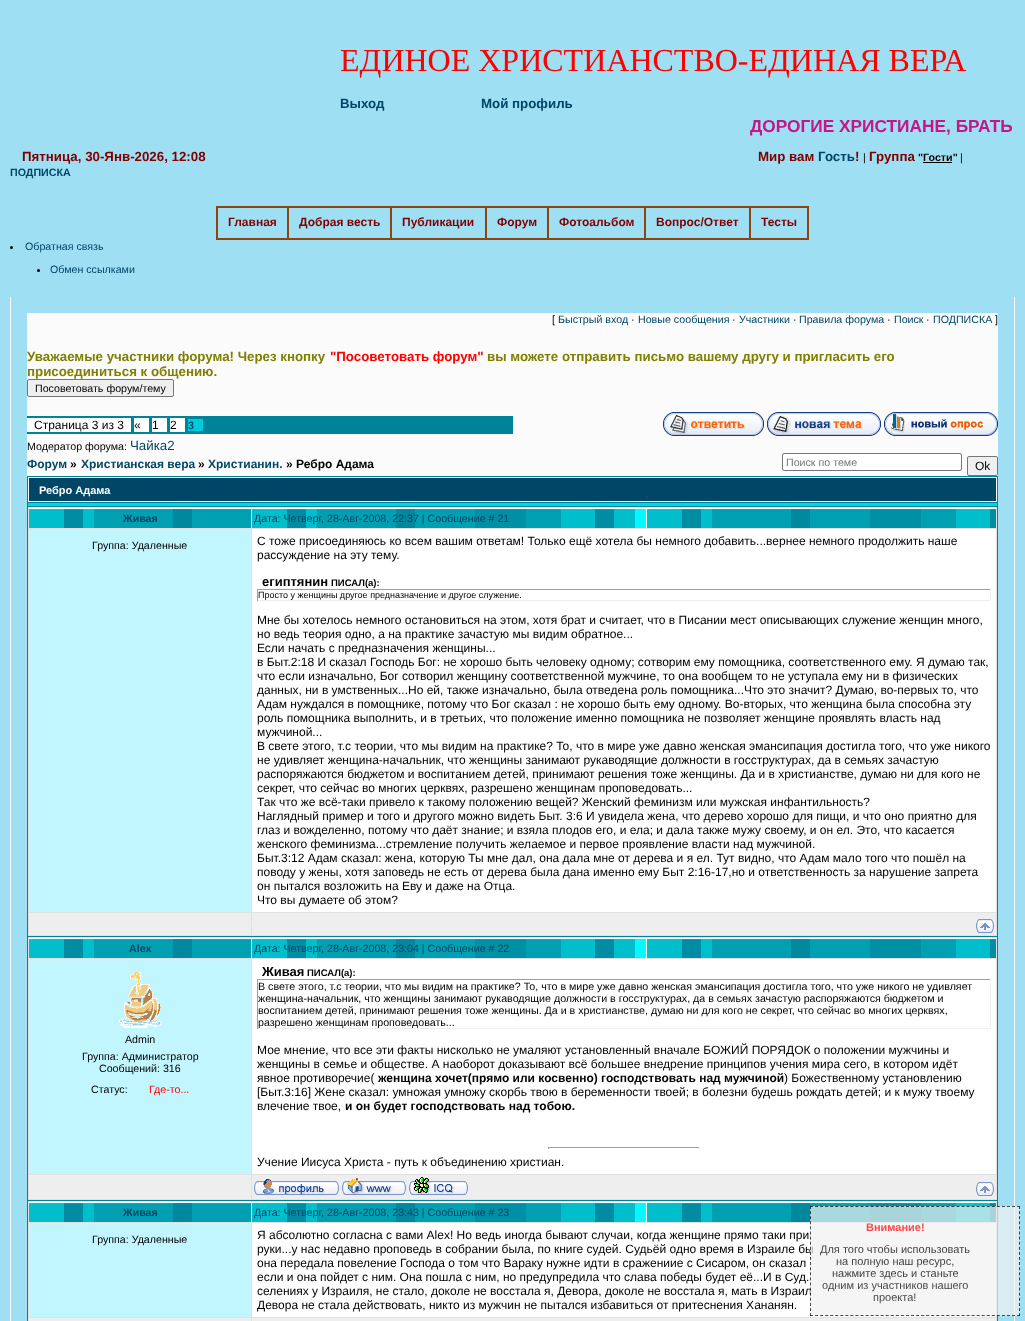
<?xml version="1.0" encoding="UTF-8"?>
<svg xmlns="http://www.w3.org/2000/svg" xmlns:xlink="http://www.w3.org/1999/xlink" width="1025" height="1321">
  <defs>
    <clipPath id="clip1"><rect x="258" y="980" width="732" height="48" /></clipPath>
  </defs>
  <rect width="100%" height="100%" fill="#9fdff3" />
  <rect x="923" y="162" width="29" height="1" fill="#000000" />
  <rect x="216.5" y="206.5" width="592" height="33" fill="none" stroke="#8b4513" />
  <rect x="217.5" y="207.5" width="70" height="31" fill="none" stroke="#8b4513" />
  <rect x="288.5" y="207.5" width="102" height="31" fill="none" stroke="#8b4513" />
  <rect x="391.5" y="207.5" width="94" height="31" fill="none" stroke="#8b4513" />
  <rect x="486.5" y="207.5" width="61" height="31" fill="none" stroke="#8b4513" />
  <rect x="548.5" y="207.5" width="96" height="31" fill="none" stroke="#8b4513" />
  <rect x="645.5" y="207.5" width="104" height="31" fill="none" stroke="#8b4513" />
  <rect x="750.5" y="207.5" width="57" height="31" fill="none" stroke="#8b4513" />
  <circle cx="11.5" cy="247.5" r="1.5" fill="#000000" />
  <circle cx="38.5" cy="270.5" r="1.5" fill="#000000" />
  <rect x="1014" y="297" width="1" height="1024" fill="#ffffff" />
  <rect x="10" y="297" width="1" height="1024" fill="#ffffff" />
  <rect x="27" y="313" width="971" height="163" fill="#fbfbfb" />
  <rect x="27.5" y="379.5" width="146" height="17" rx="1.5" fill="#efefef" stroke="#767676" />
  <rect x="27" y="416" width="486" height="18" fill="#008299" />
  <rect x="27" y="418" width="104" height="14" fill="#ffffff" />
  <rect x="134" y="418" width="15" height="14" fill="#ffffff" />
  <rect x="152" y="418" width="15" height="14" fill="#ffffff" />
  <rect x="170" y="418" width="15" height="14" fill="#ffffff" />
  <rect x="188" y="419" width="15" height="12" fill="#00cbda" />
  <image x="663" y="412" width="101" height="24" xlink:href="image1.png" />
  <image x="767" y="412" width="114" height="24" xlink:href="image2.png" />
  <image x="884" y="412" width="114" height="24" xlink:href="image3.png" />
  <rect x="782.5" y="453.5" width="179" height="17" rx="1.5" fill="#ffffff" stroke="#767676" />
  <rect x="967.5" y="456.5" width="30" height="19" rx="1.5" fill="#efefef" stroke="#767676" />
  <rect x="27" y="476" width="971" height="845" fill="#008299" />
  <rect x="28.5" y="477.5" width="968" height="24" fill="#004666" stroke="#ffffff" />
  <rect x="28" y="503" width="969" height="3" fill="#00d6e1" />
  <rect x="28" y="507" width="969" height="429" fill="#e1e1e1" />
  <image x="29" y="508" width="222" height="20" xlink:href="image4.png" />
  <image x="252" y="508" width="744" height="20" xlink:href="image5.png" />
  <rect x="29" y="529" width="222" height="383" fill="#c2f6ff" />
  <rect x="252" y="529" width="744" height="383" fill="#ffffff" />
  <rect x="257" y="589" width="734" height="1" fill="#9f9f9f" />
  <rect x="990" y="589" width="1" height="12" fill="#eeeeee" />
  <rect x="257" y="600" width="734" height="1" fill="#eeeeee" />
  <rect x="257" y="589" width="1" height="12" fill="#9f9f9f" />
  <rect x="29" y="913" width="222" height="22" fill="#eeeeee" />
  <rect x="252" y="913" width="744" height="22" fill="#eeeeee" />
  <image x="976" y="919" width="18" height="14" xlink:href="image6.png" />
  <rect x="28" y="937" width="969" height="263" fill="#e1e1e1" />
  <image x="29" y="938" width="222" height="20" xlink:href="image4.png" />
  <image x="252" y="938" width="744" height="20" xlink:href="image5.png" />
  <rect x="29" y="959" width="222" height="215" fill="#c2f6ff" />
  <image x="119" y="972" width="42" height="56" xlink:href="image7.png" />
  <rect x="252" y="959" width="744" height="215" fill="#ffffff" />
  <rect x="257" y="979" width="734" height="1" fill="#9f9f9f" />
  <rect x="990" y="979" width="1" height="50" fill="#eeeeee" />
  <rect x="257" y="1028" width="734" height="1" fill="#eeeeee" />
  <rect x="257" y="979" width="1" height="50" fill="#9f9f9f" />
  <rect x="548" y="1147" width="152" height="1" fill="#9f9f9f" />
  <rect x="699" y="1147" width="1" height="2" fill="#eeeeee" />
  <rect x="548" y="1147" width="1" height="2" fill="#9f9f9f" />
  <rect x="29" y="1175" width="222" height="24" fill="#eeeeee" />
  <rect x="252" y="1175" width="744" height="24" fill="#eeeeee" />
  <image x="254" y="1179" width="85" height="16" xlink:href="image8.png" />
  <image x="342" y="1178" width="64" height="17" xlink:href="image9.png" />
  <image x="409" y="1177" width="59" height="18" xlink:href="image10.png" />
  <image x="976" y="1182" width="18" height="14" xlink:href="image6.png" />
  <rect x="28" y="1201" width="969" height="120" fill="#e1e1e1" />
  <image x="29" y="1202" width="222" height="20" xlink:href="image4.png" />
  <image x="252" y="1202" width="744" height="20" xlink:href="image5.png" />
  <rect x="29" y="1223" width="222" height="94" fill="#c2f6ff" />
  <rect x="252" y="1223" width="744" height="94" fill="#ffffff" />
  <rect x="29" y="1318" width="222" height="3" fill="#eeeeee" />
  <rect x="252" y="1318" width="744" height="3" fill="#eeeeee" />
  <text x="340" y="71" style="font-family: Liberation Serif; font-size: 32px; fill: #ff0000">ЕДИНОЕ ХРИСТИАНСТВО-ЕДИНАЯ ВЕРА</text>
  <text x="340" y="108" style="font-family: Liberation Sans; font-size: 13.3px; font-weight: bold; fill: #004666">Выход</text>
  <text x="481" y="108" style="font-family: Liberation Sans; font-size: 13.3px; font-weight: bold; fill: #004666">Мой профиль</text>
  <text x="750" y="132" style="font-family: Liberation Sans; font-size: 17.3px; font-weight: bold; fill: #c71585">ДОРОГИЕ ХРИСТИАНЕ, БРАТЬ</text>
  <text x="22" y="161" style="font-family: Liberation Sans; font-size: 13.3px; font-weight: bold; fill: #800000">Пятница, 30-Янв-2026, 12:08</text>
  <text x="758" y="161" style="font-family: Liberation Sans; font-size: 13.3px; font-weight: bold; fill: #800000">Мир вам</text>
  <text x="818" y="161" style="font-family: Liberation Sans; font-size: 13.3px; font-weight: bold; fill: #004666">Гость</text>
  <text x="855" y="161" style="font-family: Liberation Sans; font-size: 13.3px; font-weight: bold; fill: #800000">!</text>
  <text x="863" y="161" style="font-family: Liberation Sans; font-size: 10.67px; fill: #000000">|</text>
  <text x="869" y="161" style="font-family: Liberation Sans; font-size: 13.3px; font-weight: bold; fill: #800000">Группа</text>
  <text x="918" y="161" style="font-family: Liberation Sans; font-size: 10.67px; font-weight: bold; fill: #000000">"Гости"</text>
  <text x="960" y="161" style="font-family: Liberation Sans; font-size: 10.67px; fill: #000000">|</text>
  <text x="10" y="176" style="font-family: Liberation Sans; font-size: 10.67px; font-weight: bold; fill: #004666">ПОДПИСКА</text>
  <text x="228" y="226" style="font-family: Liberation Sans; font-size: 12px; font-weight: bold; fill: #800000">Главная</text>
  <text x="299" y="226" style="font-family: Liberation Sans; font-size: 12px; font-weight: bold; fill: #800000">Добрая весть</text>
  <text x="402" y="226" style="font-family: Liberation Sans; font-size: 12px; font-weight: bold; fill: #800000">Публикации</text>
  <text x="497" y="226" style="font-family: Liberation Sans; font-size: 12px; font-weight: bold; fill: #800000">Форум</text>
  <text x="559" y="226" style="font-family: Liberation Sans; font-size: 12px; font-weight: bold; fill: #800000">Фотоальбом</text>
  <text x="656" y="226" style="font-family: Liberation Sans; font-size: 12px; font-weight: bold; fill: #800000">Вопрос/Ответ</text>
  <text x="761" y="226" style="font-family: Liberation Sans; font-size: 12px; font-weight: bold; fill: #800000">Тесты</text>
  <text x="25" y="250" style="font-family: Liberation Sans; font-size: 10.67px; fill: #004666">Обратная связь</text>
  <text x="50" y="273" style="font-family: Liberation Sans; font-size: 10.67px; fill: #004666">Обмен ссылками</text>
  <text x="552" y="323" style="font-family: Liberation Sans; font-size: 10.67px; fill: #000000">[</text>
  <text x="558" y="323" style="font-family: Liberation Sans; font-size: 10.67px; fill: #004666">Быстрый вход</text>
  <text x="631" y="323" style="font-family: Liberation Sans; font-size: 10.67px; fill: #000000">·</text>
  <text x="638" y="323" style="font-family: Liberation Sans; font-size: 10.67px; fill: #004666">Новые сообщения</text>
  <text x="732" y="323" style="font-family: Liberation Sans; font-size: 10.67px; fill: #000000">·</text>
  <text x="739" y="323" style="font-family: Liberation Sans; font-size: 10.67px; fill: #004666">Участники</text>
  <text x="793" y="323" style="font-family: Liberation Sans; font-size: 10.67px; fill: #000000">·</text>
  <text x="799" y="323" style="font-family: Liberation Sans; font-size: 10.67px; fill: #004666">Правила форума</text>
  <text x="887" y="323" style="font-family: Liberation Sans; font-size: 10.67px; fill: #000000">·</text>
  <text x="894" y="323" style="font-family: Liberation Sans; font-size: 10.67px; fill: #004666">Поиск</text>
  <text x="926" y="323" style="font-family: Liberation Sans; font-size: 10.67px; fill: #000000">·</text>
  <text x="933" y="323" style="font-family: Liberation Sans; font-size: 10.67px; fill: #004666">ПОДПИСКА</text>
  <text x="995" y="323" style="font-family: Liberation Sans; font-size: 10.67px; fill: #000000">]</text>
  <text x="27" y="361" style="font-family: Liberation Sans; font-size: 13.3px; font-weight: bold; fill: #808000">Уважаемые участники форума! Через кнопку</text>
  <text x="330" y="361" style="font-family: Liberation Sans; font-size: 13.3px; font-weight: bold; fill: #ff0000">"Посоветовать форум"</text>
  <text x="487" y="361" style="font-family: Liberation Sans; font-size: 13.3px; font-weight: bold; fill: #808000">вы можете отправить письмо вашему другу и пригласить его</text>
  <text x="27" y="376" style="font-family: Liberation Sans; font-size: 13.3px; font-weight: bold; fill: #808000">присоединиться к общению.</text>
  <text x="35" y="392" style="font-family: Liberation Sans; font-size: 10.67px; fill: #000000">Посоветовать форум/тему</text>
  <text x="34" y="429" style="font-family: Liberation Sans; font-size: 12px; fill: #000000">Страница 3 из 3</text>
  <text x="134" y="429" style="font-family: Liberation Sans; font-size: 12px; fill: #000000">«</text>
  <text x="152" y="429" style="font-family: Liberation Sans; font-size: 12px; fill: #000000">1</text>
  <text x="170" y="429" style="font-family: Liberation Sans; font-size: 12px; fill: #000000">2</text>
  <text x="188" y="429" style="font-family: Liberation Sans; font-size: 10.67px; font-weight: bold; fill: #004666">3</text>
  <text x="27" y="450" style="font-family: Liberation Sans; font-size: 10.67px; fill: #000000">Модератор форума:</text>
  <text x="130" y="450" style="font-family: Liberation Sans; font-size: 13.3px; fill: #004666">Чайка2</text>
  <text x="27" y="468" style="font-family: Liberation Sans; font-size: 12px; font-weight: bold; fill: #004666">Форум</text>
  <text x="70" y="468" style="font-family: Liberation Sans; font-size: 12px; font-weight: bold; fill: #000000">»</text>
  <text x="81" y="468" style="font-family: Liberation Sans; font-size: 12px; font-weight: bold; fill: #004666">Христианская вера</text>
  <text x="198" y="468" style="font-family: Liberation Sans; font-size: 12px; font-weight: bold; fill: #000000">»</text>
  <text x="208" y="468" style="font-family: Liberation Sans; font-size: 12px; font-weight: bold; fill: #004666">Христианин.</text>
  <text x="286" y="468" style="font-family: Liberation Sans; font-size: 12px; font-weight: bold; fill: #000000">» Ребро Адама</text>
  <text x="786" y="466" style="font-family: Liberation Sans; font-size: 10.67px; fill: #757575">Поиск по теме</text>
  <text x="975" y="470" style="font-family: Liberation Sans; font-size: 12px; fill: #000000">Ok</text>
  <text x="39" y="494" style="font-family: Liberation Sans; font-size: 11px; font-weight: bold; fill: #ffffff">Ребро Адама</text>
  <text x="123" y="522" style="font-family: Liberation Sans; font-size: 10.67px; font-weight: bold; fill: #004666">Живая</text>
  <text x="254" y="522" style="font-family: Liberation Sans; font-size: 10.67px; fill: #004666">Дата: Четверг, 28-Авг-2008, 22:37 | Сообщение # 21</text>
  <text x="92" y="549" style="font-family: Liberation Sans; font-size: 10.67px; fill: #000000">Группа: Удаленные</text>
  <text x="257" y="545" style="font-family: Liberation Sans; font-size: 12px; fill: #000000">С тоже присоединяюсь ко всем вашим ответам! Только ещё хотела бы немного добавить...вернее немного продолжить наше</text>
  <text x="257" y="559" style="font-family: Liberation Sans; font-size: 12px; fill: #000000">рассуждение на эту тему.</text>
  <text x="262" y="586" style="font-family: Liberation Sans; font-size: 13px; font-weight: bold; fill: #000000">египтянин</text>
  <text x="331" y="586" style="font-family: Liberation Sans; font-size: 9.5px; font-weight: bold; fill: #000000">ПИСАЛ(а):</text>
  <text x="258" y="598" style="font-family: Liberation Sans; font-size: 9px; fill: #000000">Просто у женщины другое предназначение и другое служение.</text>
  <text x="257" y="624" style="font-family: Liberation Sans; font-size: 12px; fill: #000000">Мне бы хотелось немного остановиться на этом, хотя брат и считает, что в Писании мест описывающих служение женщин много,</text>
  <text x="257" y="638" style="font-family: Liberation Sans; font-size: 12px; fill: #000000">но ведь теория одно, а на практике зачастую мы видим обратное...</text>
  <text x="257" y="652" style="font-family: Liberation Sans; font-size: 12px; fill: #000000">Если начать с предназначения женщины...</text>
  <text x="257" y="666" style="font-family: Liberation Sans; font-size: 12px; fill: #000000">в Быт.2:18 И сказал Господь Бог: не хорошо быть человеку одному; сотворим ему помощника, соответственного ему. Я думаю так,</text>
  <text x="257" y="680" style="font-family: Liberation Sans; font-size: 12px; fill: #000000">что если изначально, Бог сотворил женщину соответственной мужчине, то она вообщем то не уступала ему ни в физических</text>
  <text x="257" y="694" style="font-family: Liberation Sans; font-size: 12px; fill: #000000">данных, ни в умственных...Но ей, также изначально, была отведена роль помощника...Что это значит? Думаю, во-первых то, что</text>
  <text x="257" y="708" style="font-family: Liberation Sans; font-size: 12px; fill: #000000">Адам нуждался в помощнике, потому что Бог сказал : не хорошо быть ему одному. Во-вторых, что женщина была способна эту</text>
  <text x="257" y="722" style="font-family: Liberation Sans; font-size: 12px; fill: #000000">роль помощника выполнить, и в третьих, что положение именно помощника не позволяет женщине проявлять власть над</text>
  <text x="257" y="736" style="font-family: Liberation Sans; font-size: 12px; fill: #000000">мужчиной...</text>
  <text x="257" y="750" style="font-family: Liberation Sans; font-size: 12px; fill: #000000">В свете этого, т.с теории, что мы видим на практике? То, что в мире уже давно женская эмансипация достигла того, что уже никого</text>
  <text x="257" y="764" style="font-family: Liberation Sans; font-size: 12px; fill: #000000">не удивляет женщина-начальник, что женщины занимают рукаводящие должности в госструктурах, да в семьях зачастую</text>
  <text x="257" y="778" style="font-family: Liberation Sans; font-size: 12px; fill: #000000">распоряжаются бюджетом и воспитанием детей, принимают решения тоже женщины. Да и в христианстве, думаю ни для кого не</text>
  <text x="257" y="792" style="font-family: Liberation Sans; font-size: 12px; fill: #000000">секрет, что сейчас во многих церквях, разрешено женщинам проповедовать...</text>
  <text x="257" y="806" style="font-family: Liberation Sans; font-size: 12px; fill: #000000">Так что же всё-таки привело к такому положению вещей? Женский феминизм или мужская инфантильность?</text>
  <text x="257" y="820" style="font-family: Liberation Sans; font-size: 12px; fill: #000000">Наглядный пример и того и другого можно видеть Быт. 3:6 И увидела жена, что дерево хорошо для пищи, и что оно приятно для</text>
  <text x="257" y="834" style="font-family: Liberation Sans; font-size: 12px; fill: #000000">глаз и вожделенно, потому что даёт знание; и взяла плодов его, и ела; и дала также мужу своему, и он ел. Это, что касается</text>
  <text x="257" y="848" style="font-family: Liberation Sans; font-size: 12px; fill: #000000">женского феминизма...стремление получить желаемое и первое проявление власти над мужчиной.</text>
  <text x="257" y="862" style="font-family: Liberation Sans; font-size: 12px; fill: #000000">Быт.3:12 Адам сказал: жена, которую Ты мне дал, она дала мне от дерева и я ел. Тут видно, что Адам мало того что пошёл на</text>
  <text x="257" y="876" style="font-family: Liberation Sans; font-size: 12px; fill: #000000">поводу у жены, хотя заповедь не есть от дерева была дана именно ему Быт 2:16-17,но и ответственность за нарушение запрета</text>
  <text x="257" y="890" style="font-family: Liberation Sans; font-size: 12px; fill: #000000">он пытался возложить на Еву и даже на Отца.</text>
  <text x="257" y="904" style="font-family: Liberation Sans; font-size: 12px; fill: #000000">Что вы думаете об этом?</text>
  <text x="129" y="952" style="font-family: Liberation Sans; font-size: 10.67px; font-weight: bold; fill: #004666">Alex</text>
  <text x="254" y="952" style="font-family: Liberation Sans; font-size: 10.67px; fill: #004666">Дата: Четверг, 28-Авг-2008, 23:04 | Сообщение # 22</text>
  <text x="125" y="1043" style="font-family: Liberation Sans; font-size: 10.67px; fill: #000000">Admin</text>
  <text x="82" y="1060" style="font-family: Liberation Sans; font-size: 10.67px; fill: #000000">Группа: Администратор</text>
  <text x="99" y="1072" style="font-family: Liberation Sans; font-size: 10.67px; fill: #000000">Сообщений: 316</text>
  <text x="91" y="1093" style="font-family: Liberation Sans; font-size: 10.67px; fill: #000000">Статус:</text>
  <text x="149" y="1093" style="font-family: Liberation Sans; font-size: 10.67px; fill: #ff0000">Где-то...</text>
  <text x="262" y="976" style="font-family: Liberation Sans; font-size: 13px; font-weight: bold; fill: #000000">Живая</text>
  <text x="307" y="976" style="font-family: Liberation Sans; font-size: 9.5px; font-weight: bold; fill: #000000">ПИСАЛ(а):</text>
  <text x="258" y="990" style="font-family: Liberation Sans; font-size: 10.67px; fill: #000000">В свете этого, т.с теории, что мы видим на практике? То, что в мире уже давно женская эмансипация достигла того, что уже никого не удивляет</text>
  <text x="258" y="1002" style="font-family: Liberation Sans; font-size: 10.67px; fill: #000000">женщина-начальник, что женщины занимают рукаводящие должности в госструктурах, да в семьях зачастую распоряжаются бюджетом и</text>
  <text x="258" y="1014" style="font-family: Liberation Sans; font-size: 10.67px; fill: #000000">воспитанием детей, принимают решения тоже женщины. Да и в христианстве, думаю ни для кого не секрет, что сейчас во многих церквях,</text>
  <g clip-path="url(#clip1)">
    <text x="258" y="1026" style="font-family: Liberation Sans; font-size: 10.67px; fill: #000000">разрешено женщинам проповедовать...</text>
  </g>
  <text x="257" y="1054" style="font-family: Liberation Sans; font-size: 12px; fill: #000000">Мое мнение, что все эти факты нисколько не умаляют установленный вначале БОЖИЙ ПОРЯДОК о положении мужчины и</text>
  <text x="257" y="1068" style="font-family: Liberation Sans; font-size: 12px; fill: #000000">женщины в семье и обществе. А наоборот доказывают всё большее внедрение принципов учения мира сего, в котором идёт</text>
  <text x="257" y="1082" style="font-family: Liberation Sans; font-size: 12px; fill: #000000">явное противоречие(</text>
  <text x="378" y="1082" style="font-family: Liberation Sans; font-size: 12px; font-weight: bold; fill: #000000">женщина хочет(прямо или косвенно) господствовать над мужчиной</text>
  <text x="784" y="1082" style="font-family: Liberation Sans; font-size: 12px; fill: #000000">) Божественному установлению</text>
  <text x="257" y="1096" style="font-family: Liberation Sans; font-size: 12px; fill: #000000">[Быт.3:16] Жене сказал: умножая умножу скорбь твою в беременности твоей; в болезни будешь рождать детей; и к мужу твоему</text>
  <text x="257" y="1110" style="font-family: Liberation Sans; font-size: 12px; fill: #000000">влечение твое,</text>
  <text x="345" y="1110" style="font-family: Liberation Sans; font-size: 12px; font-weight: bold; fill: #000000">и он будет господствовать над тобою.</text>
  <text x="257" y="1166" style="font-family: Liberation Sans; font-size: 12px; fill: #000000">Учение Иисуса Христа - путь к объединению христиан.</text>
  <text x="123" y="1216" style="font-family: Liberation Sans; font-size: 10.67px; font-weight: bold; fill: #004666">Живая</text>
  <text x="254" y="1216" style="font-family: Liberation Sans; font-size: 10.67px; fill: #004666">Дата: Четверг, 28-Авг-2008, 23:43 | Сообщение # 23</text>
  <text x="92" y="1243" style="font-family: Liberation Sans; font-size: 10.67px; fill: #000000">Группа: Удаленные</text>
  <text x="257" y="1239" style="font-family: Liberation Sans; font-size: 12px; fill: #000000">Я абсолютно согласна с вами Alex! Но ведь иногда бывают случаи, когда женщине прямо таки при</text>
  <text x="257" y="1253" style="font-family: Liberation Sans; font-size: 12px; fill: #000000">руки...у нас недавно проповедь в собрании была, по книге судей. Судьёй одно время в Израиле бы</text>
  <text x="257" y="1267" style="font-family: Liberation Sans; font-size: 12px; fill: #000000">она передала повеление Господа о том что Вараку нужне идти в сражениие с Сисаром, он сказал</text>
  <text x="257" y="1281" style="font-family: Liberation Sans; font-size: 12px; fill: #000000">если и она пойдет с ним. Она пошла с ним, но предупредила что слава победы будет её...И в Суд.</text>
  <text x="257" y="1295" style="font-family: Liberation Sans; font-size: 12px; fill: #000000">селениях у Израиля, не стало, доколе не восстала я, Девора, доколе не восстала я, мать в Израил</text>
  <text x="257" y="1309" style="font-family: Liberation Sans; font-size: 12px; fill: #000000">Девора не стала действовать, никто из мужчин не пытался избавиться от притеснения Хананян.</text>
  <rect x="810" y="1206" width="210" height="110" fill="#f1f1f1" fill-opacity="0.7" />
  <path d="M 810 1206.5 h 210" fill="none" stroke="#000000" stroke-opacity="0.7" stroke-dasharray="3 2.05" />
  <path d="M 1019.5 1206 v 110" fill="none" stroke="#304349" stroke-dasharray="3 2.1" />
  <path d="M 810 1315.5 h 210" fill="none" stroke="#000000" stroke-opacity="0.7" stroke-dasharray="3 2.05" />
  <path d="M 810.5 1206 v 110" fill="none" stroke="#000000" stroke-opacity="0.7" stroke-dasharray="3 2.1" />
  <text x="866" y="1231" style="font-family: Liberation Sans; font-size: 11px; font-weight: bold; fill: #fc4949">Внимание!</text>
  <text x="820" y="1253" style="font-family: Liberation Sans; font-size: 11px; fill: #434343">Для того чтобы использовать</text>
  <text x="836" y="1265" style="font-family: Liberation Sans; font-size: 11px; fill: #434343">на полную наш ресурс,</text>
  <text x="832" y="1277" style="font-family: Liberation Sans; font-size: 11px; fill: #434343">нажмите здесь и станьте</text>
  <text x="822" y="1289" style="font-family: Liberation Sans; font-size: 11px; fill: #494949">одним из участников нашего</text>
  <text x="873" y="1301" style="font-family: Liberation Sans; font-size: 11px; fill: #494949">проекта!</text>
</svg>
